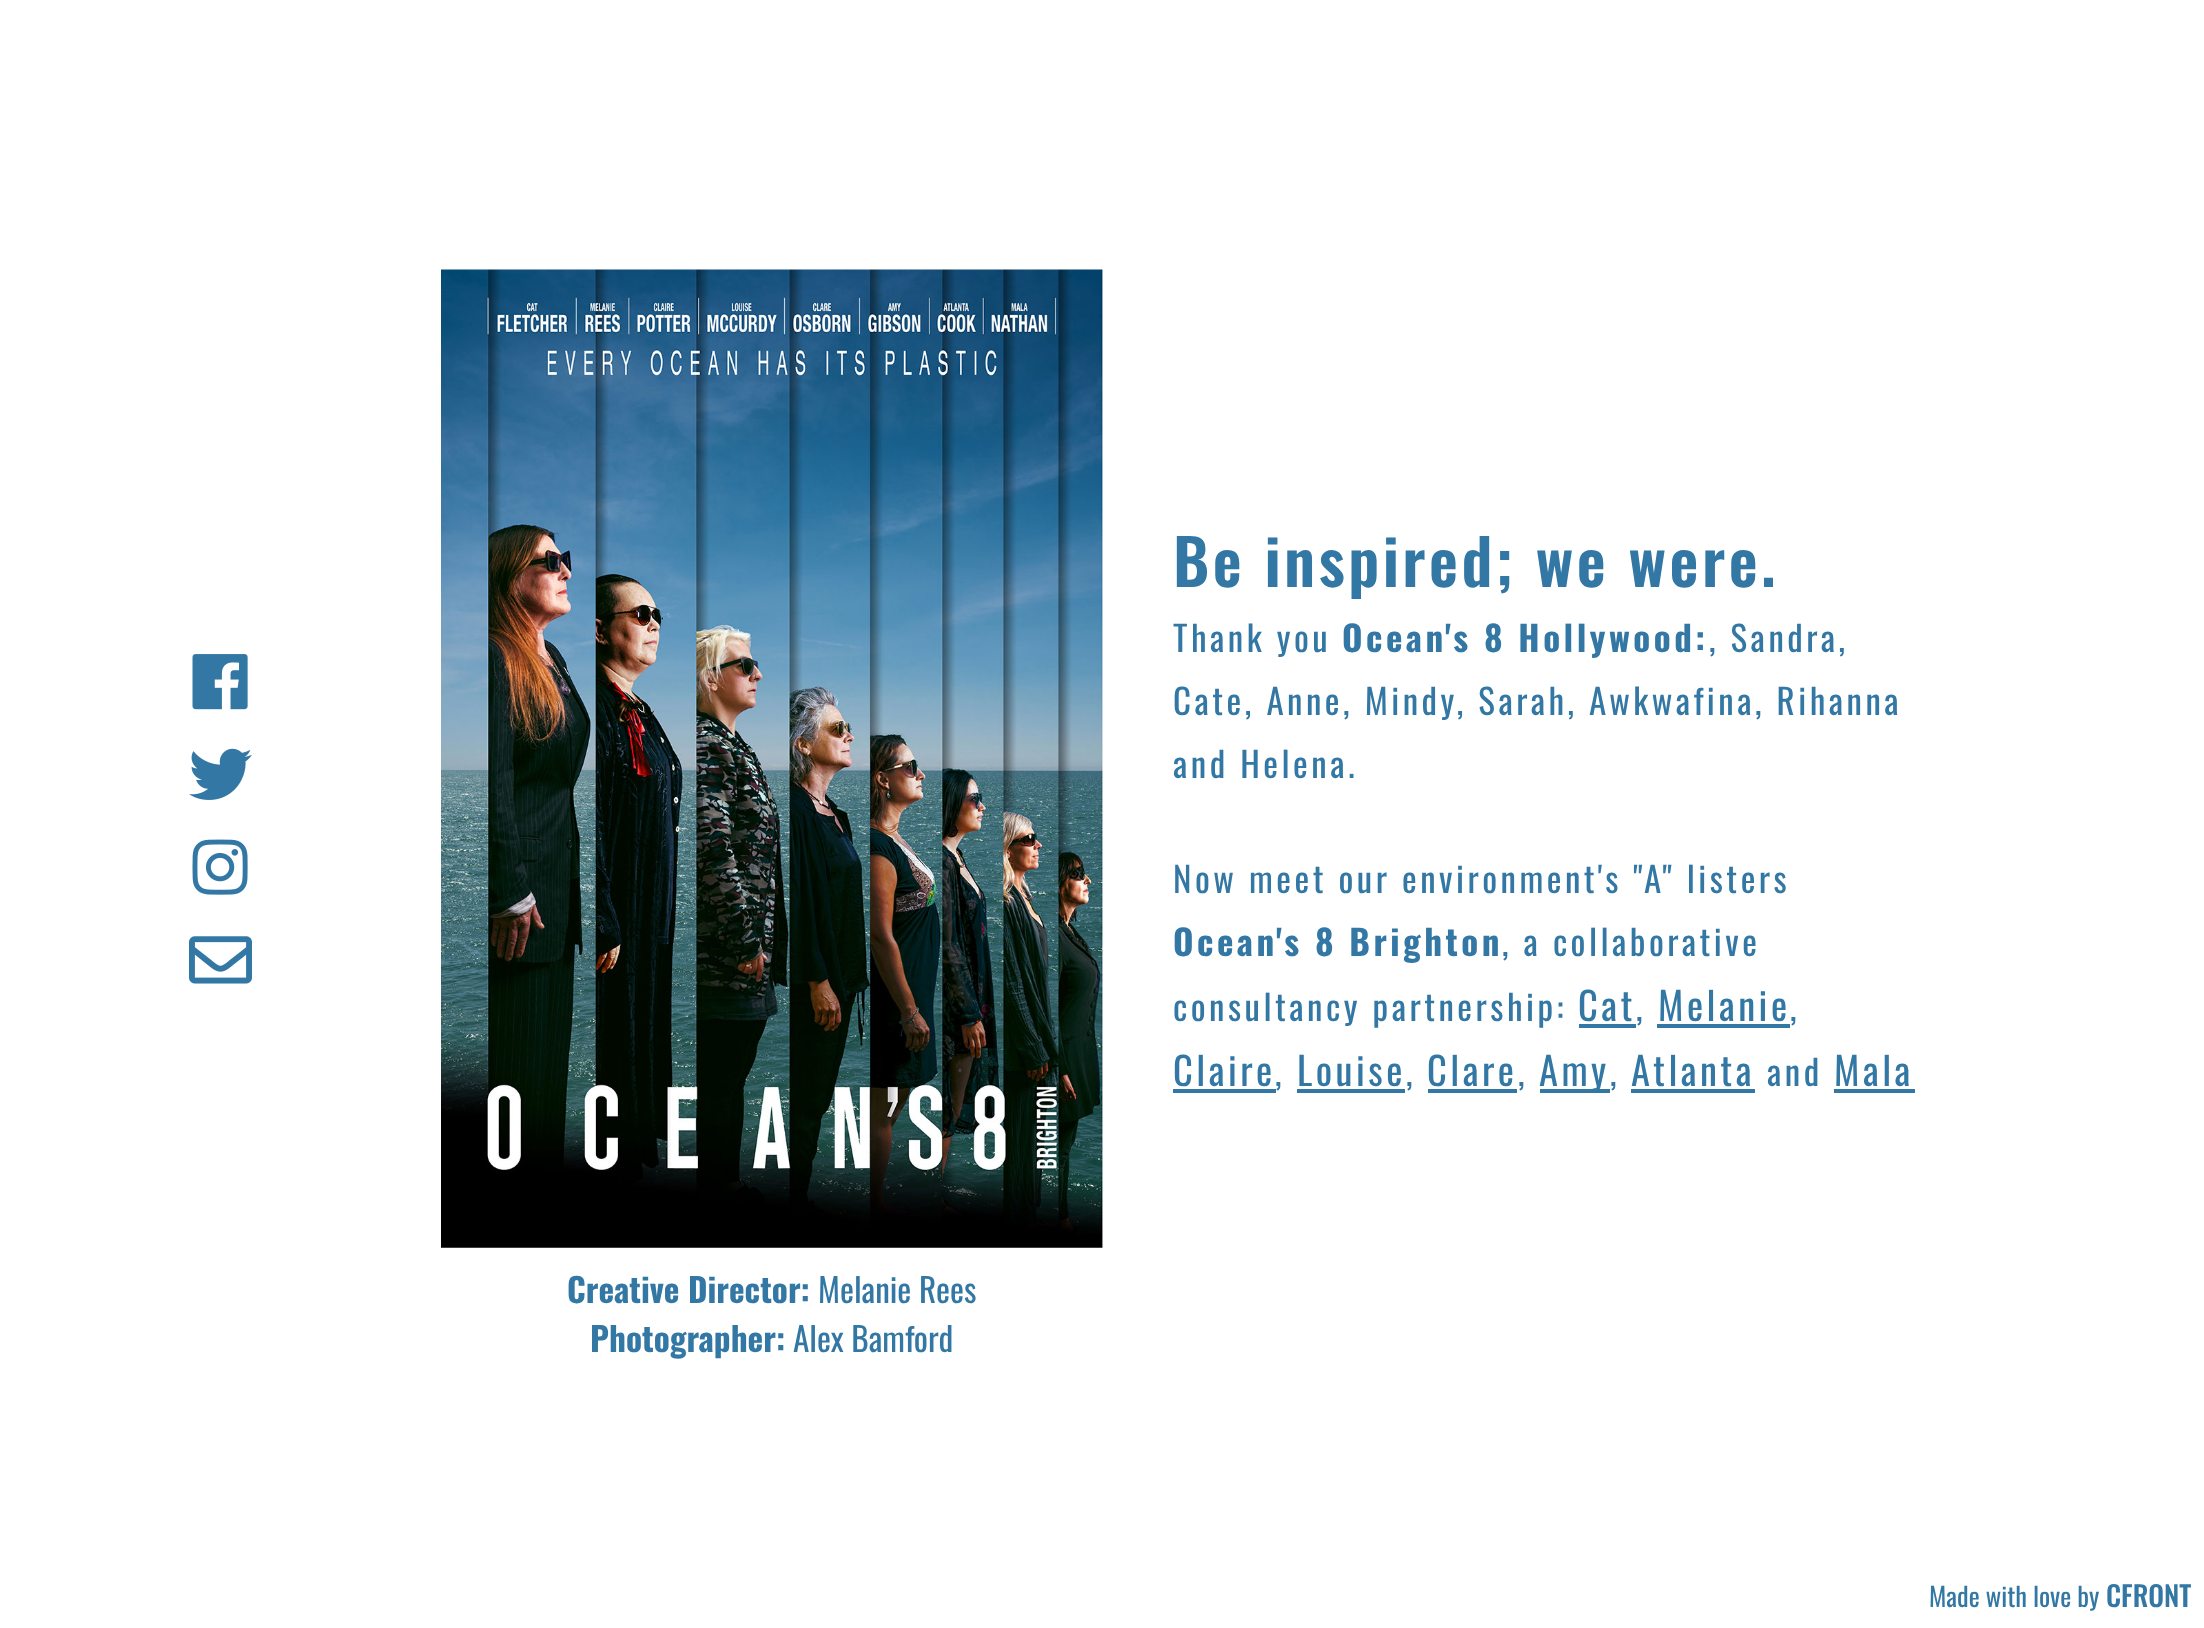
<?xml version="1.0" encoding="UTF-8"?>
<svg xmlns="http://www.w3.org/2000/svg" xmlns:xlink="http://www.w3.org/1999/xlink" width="2204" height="1628">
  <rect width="100%" height="100%" fill="#ffffff" />
  <image x="192" y="654" width="56" height="56" xlink:href="image1.png" />
  <image x="189" y="748" width="63" height="52" xlink:href="image2.png" />
  <image x="192" y="839" width="56" height="56" xlink:href="image3.png" />
  <image x="189" y="936" width="63" height="48" xlink:href="image4.png" />
  <rect x="1579" y="1024" width="57" height="4" fill="#3377a4" />
  <rect x="1657" y="1024" width="133" height="4" fill="#3377a4" />
  <rect x="1173" y="1089" width="103" height="4" fill="#3377a4" />
  <rect x="1297" y="1089" width="108" height="4" fill="#3377a4" />
  <rect x="1428" y="1089" width="89" height="4" fill="#3377a4" />
  <rect x="1540" y="1089" width="70" height="4" fill="#3377a4" />
  <rect x="1631" y="1089" width="124" height="4" fill="#3377a4" />
  <rect x="1834" y="1089" width="81" height="4" fill="#3377a4" />
  <image x="441" y="269" width="662" height="979" xlink:href="image5.png" />
  <text x="1173" y="587" style="font-family: Oswald; font-size: 63px; font-weight: 600; letter-spacing: 3.5px; fill: #3377a4">Be inspired; we were.</text>
  <text x="1173" y="652" style="font-family: Oswald; font-size: 35px; letter-spacing: 3.5px; fill: #3377a4">Thank you</text>
  <text x="1342" y="652" style="font-family: Oswald; font-size: 35px; font-weight: bold; letter-spacing: 3.5px; fill: #3377a4">Ocean's 8 Hollywood:</text>
  <text x="1709" y="652" style="font-family: Oswald; font-size: 35px; letter-spacing: 3.5px; fill: #3377a4">, Sandra,</text>
  <text x="1173" y="715" style="font-family: Oswald; font-size: 35px; letter-spacing: 3.5px; fill: #3377a4">Cate, Anne, Mindy, Sarah, Awkwafina, Rihanna</text>
  <text x="1173" y="778" style="font-family: Oswald; font-size: 35px; letter-spacing: 3.5px; fill: #3377a4">and Helena.</text>
  <text x="1173" y="893" style="font-family: Oswald; font-size: 35px; letter-spacing: 3.5px; fill: #3377a4">Now meet our environment's "A" listers</text>
  <text x="1173" y="956" style="font-family: Oswald; font-size: 35px; font-weight: bold; letter-spacing: 3.5px; fill: #3377a4">Ocean's 8 Brighton</text>
  <text x="1502" y="956" style="font-family: Oswald; font-size: 35px; letter-spacing: 3.5px; fill: #3377a4">, a collaborative</text>
  <text x="1173" y="1021" style="font-family: Oswald; font-size: 35px; letter-spacing: 3.5px; fill: #3377a4">consultancy partnership:</text>
  <text x="1578" y="1021" style="font-family: Oswald; font-size: 38.5px; letter-spacing: 3.5px; fill: #3377a4">Cat</text>
  <text x="1636" y="1021" style="font-family: Oswald; font-size: 35px; letter-spacing: 3.5px; fill: #3377a4">,</text>
  <text x="1658" y="1021" style="font-family: Oswald; font-size: 38.5px; letter-spacing: 3.5px; fill: #3377a4">Melanie</text>
  <text x="1790" y="1021" style="font-family: Oswald; font-size: 35px; letter-spacing: 3.5px; fill: #3377a4">,</text>
  <text x="1173" y="1086" style="font-family: Oswald; font-size: 38.5px; letter-spacing: 3.5px; fill: #3377a4">Claire</text>
  <text x="1275" y="1086" style="font-family: Oswald; font-size: 35px; letter-spacing: 3.5px; fill: #3377a4">,</text>
  <text x="1297" y="1086" style="font-family: Oswald; font-size: 38.5px; letter-spacing: 3.5px; fill: #3377a4">Louise</text>
  <text x="1406" y="1086" style="font-family: Oswald; font-size: 35px; letter-spacing: 3.5px; fill: #3377a4">,</text>
  <text x="1427" y="1086" style="font-family: Oswald; font-size: 38.5px; letter-spacing: 3.5px; fill: #3377a4">Clare</text>
  <text x="1518" y="1086" style="font-family: Oswald; font-size: 35px; letter-spacing: 3.5px; fill: #3377a4">,</text>
  <text x="1539" y="1086" style="font-family: Oswald; font-size: 38.5px; letter-spacing: 3.5px; fill: #3377a4">Amy</text>
  <text x="1610" y="1086" style="font-family: Oswald; font-size: 35px; letter-spacing: 3.5px; fill: #3377a4">,</text>
  <text x="1631" y="1086" style="font-family: Oswald; font-size: 38.5px; letter-spacing: 3.5px; fill: #3377a4">Atlanta</text>
  <text x="1767" y="1086" style="font-family: Oswald; font-size: 35px; letter-spacing: 3.5px; fill: #3377a4">and</text>
  <text x="1834" y="1086" style="font-family: Oswald; font-size: 38.5px; letter-spacing: 3.5px; fill: #3377a4">Mala</text>
  <text x="567" y="1303" style="font-family: Oswald; font-size: 33.25px; font-weight: bold; fill: #3377a4">Creative Director:</text>
  <text x="818" y="1303" style="font-family: Oswald; font-size: 33.25px; fill: #3377a4">Melanie Rees</text>
  <text x="590" y="1352" style="font-family: Oswald; font-size: 33.25px; font-weight: bold; fill: #3377a4">Photographer:</text>
  <text x="793" y="1352" style="font-family: Oswald; font-size: 33.25px; fill: #3377a4">Alex Bamford</text>
  <text x="1929" y="1607" style="font-family: Oswald; font-size: 26.25px; fill: #3377a4">Made with love by</text>
  <text x="2106" y="1607" style="font-family: Oswald; font-size: 28px; font-weight: 500; fill: #3377a4">CFRONT</text>
</svg>
